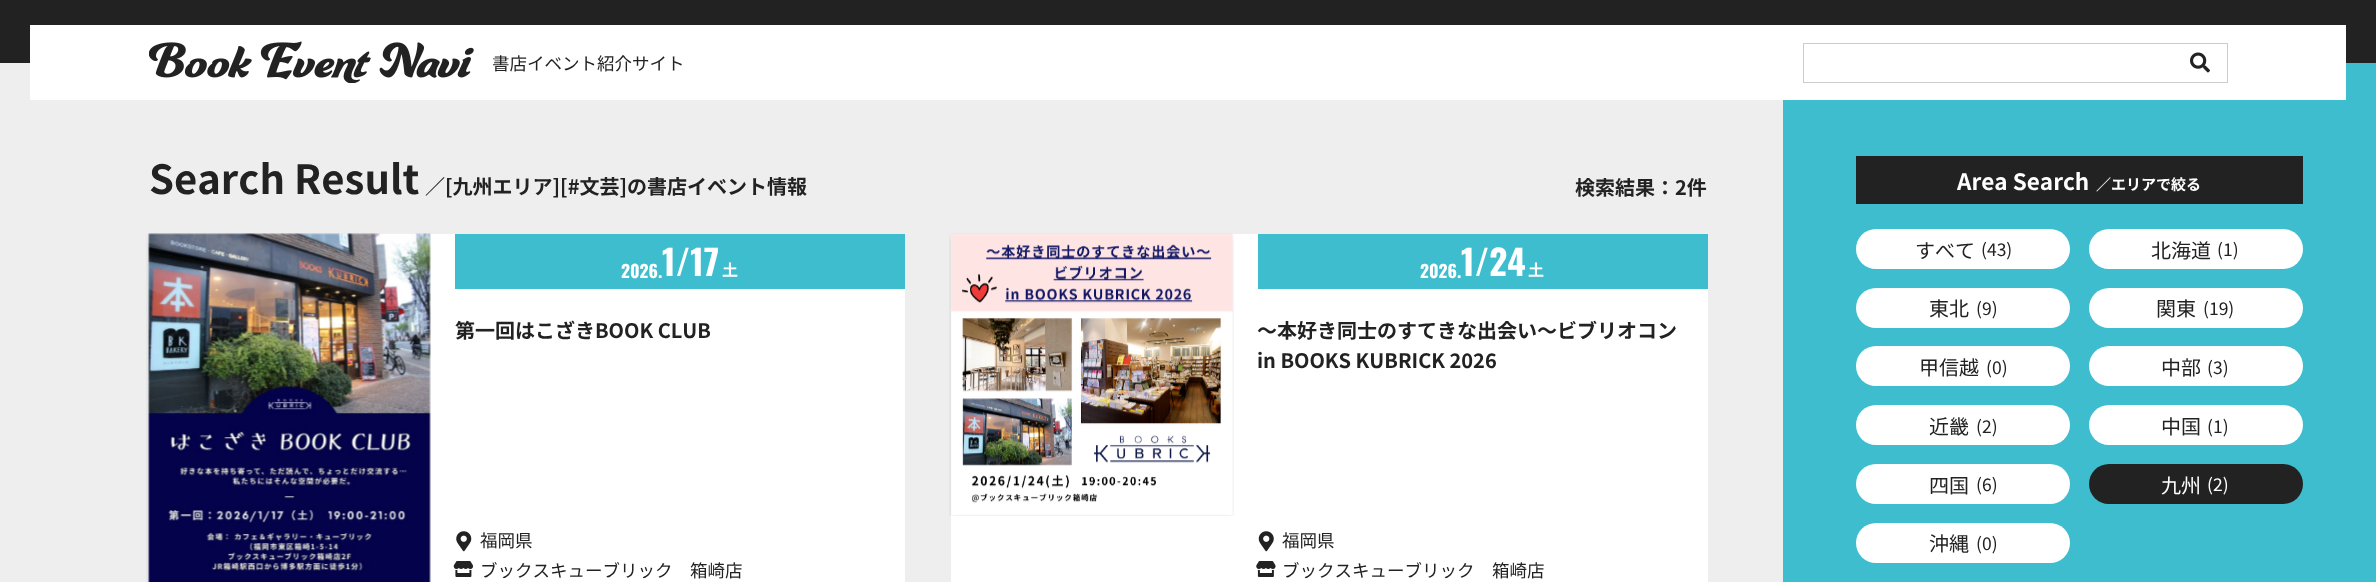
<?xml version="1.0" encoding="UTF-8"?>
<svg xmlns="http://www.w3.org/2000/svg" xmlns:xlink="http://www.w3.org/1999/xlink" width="2376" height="582">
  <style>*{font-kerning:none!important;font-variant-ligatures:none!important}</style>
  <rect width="100%" height="100%" fill="#eeeeee" />
  <rect width="2376" height="63" fill="#222222" />
  <rect x="1783" y="63" width="593" height="519" fill="#3ebdcf" />
  <rect x="30" y="25" width="2316" height="75" fill="#ffffff" />
  <image x="149" y="41" width="325" height="42" xlink:href="image1.png" />
  <rect x="1803.5" y="43.5" width="424" height="39" fill="none" stroke="#cccccc" />
  <image x="2190" y="52" width="20" height="21" xlink:href="image2.png" />
  <rect x="149" y="234" width="756" height="348" fill="#ffffff" />
  <image x="146" y="233" width="285" height="349" xlink:href="image3.png" />
  <rect x="455" y="234" width="450" height="55" fill="#3ebdcf" />
  <image x="456" y="531" width="16" height="21" xlink:href="image4.png" />
  <image x="453" y="561" width="21" height="16" xlink:href="image5.png" />
  <rect x="951" y="234" width="757" height="348" fill="#ffffff" />
  <image x="949" y="233" width="285" height="283" xlink:href="image6.png" />
  <rect x="1258" y="234" width="450" height="55" fill="#3ebdcf" />
  <image x="1258" y="531" width="16" height="21" xlink:href="image7.png" />
  <image x="1256" y="561" width="20" height="16" xlink:href="image8.png" />
  <rect x="1856" y="156" width="447" height="48" fill="#222222" />
  <rect x="1856" y="229" width="214" height="40" rx="20" fill="#ffffff" />
  <rect x="2089" y="229" width="214" height="40" rx="20" fill="#ffffff" />
  <rect x="1856" y="288" width="214" height="40" rx="20" fill="#ffffff" />
  <rect x="2089" y="288" width="214" height="40" rx="20" fill="#ffffff" />
  <rect x="1856" y="346" width="214" height="40" rx="20" fill="#ffffff" />
  <rect x="2089" y="346" width="214" height="40" rx="20" fill="#ffffff" />
  <rect x="1856" y="405" width="214" height="40" rx="20" fill="#ffffff" />
  <rect x="2089" y="405" width="214" height="40" rx="20" fill="#ffffff" />
  <rect x="1856" y="464" width="214" height="40" rx="20" fill="#ffffff" />
  <rect x="2089" y="464" width="214" height="40" rx="20" fill="#222222" />
  <rect x="1856" y="523" width="214" height="40" rx="20" fill="#ffffff" />
  <text x="492" y="70" style="font-family: Noto Sans JP; font-size: 17.5px; fill: #222222">書店イベント紹介サイト</text>
  <text x="149" y="194" style="font-family: Noto Sans JP; font-size: 40px; font-weight: bold; fill: #222222">Search Result</text>
  <text x="425" y="194" style="font-family: Noto Sans JP; font-size: 20px; font-weight: bold; fill: #222222">／[九州エリア][#文芸]の書店イベント情報</text>
  <text x="1575" y="195" style="font-family: Noto Sans JP; font-size: 20px; font-weight: bold; fill: #222222">検索結果：2件</text>
  <text x="621" y="278" style="font-family: Oswald; font-size: 17.5px; font-weight: bold; fill: #ffffff">2026.</text>
  <text x="662" y="276" style="font-family: Oswald; font-size: 35px; font-weight: bold; fill: #ffffff">1/17</text>
  <text x="722" y="276" style="font-family: Noto Sans JP; font-size: 16px; font-weight: bold; fill: #ffffff">土</text>
  <text x="455" y="338" style="font-family: Noto Sans JP; font-size: 20px; font-weight: bold; fill: #222222">第一回はこざきBOOK CLUB</text>
  <text x="480" y="547" style="font-family: Noto Sans JP; font-size: 17.5px; fill: #222222">福岡県</text>
  <text x="480" y="577" style="font-family: Noto Sans JP; font-size: 17.5px; fill: #222222">ブックスキューブリック　箱崎店</text>
  <text x="1420" y="278" style="font-family: Oswald; font-size: 17.5px; font-weight: bold; fill: #ffffff">2026.</text>
  <text x="1461" y="276" style="font-family: Oswald; font-size: 35px; font-weight: bold; fill: #ffffff">1/24</text>
  <text x="1528" y="276" style="font-family: Noto Sans JP; font-size: 16px; font-weight: bold; fill: #ffffff">土</text>
  <text x="1257" y="338" style="font-family: Noto Sans JP; font-size: 20px; font-weight: bold; fill: #222222">〜本好き同士のすてきな出会い〜ビブリオコン</text>
  <text x="1257" y="368" style="font-family: Noto Sans JP; font-size: 20px; font-weight: bold; fill: #222222">in BOOKS KUBRICK 2026</text>
  <text x="1282" y="547" style="font-family: Noto Sans JP; font-size: 17.5px; fill: #222222">福岡県</text>
  <text x="1282" y="577" style="font-family: Noto Sans JP; font-size: 17.5px; fill: #222222">ブックスキューブリック　箱崎店</text>
  <text x="1957" y="190" style="font-family: Noto Sans JP; font-size: 22.5px; font-weight: bold; fill: #ffffff">Area Search</text>
  <text x="2096" y="190" style="font-family: Noto Sans JP; font-size: 15px; font-weight: bold; fill: #ffffff">／エリアで絞る</text>
  <text x="1915" y="258" style="font-family: Noto Sans JP; font-size: 20px; fill: #222222">すべて</text>
  <text x="1981" y="256" style="font-family: Noto Sans JP; font-size: 17.5px; fill: #222222">(43)</text>
  <text x="2151" y="258" style="font-family: Noto Sans JP; font-size: 20px; fill: #222222">北海道</text>
  <text x="2217" y="256" style="font-family: Noto Sans JP; font-size: 17.5px; fill: #222222">(1)</text>
  <text x="1929" y="316" style="font-family: Noto Sans JP; font-size: 20px; fill: #222222">東北</text>
  <text x="1976" y="315" style="font-family: Noto Sans JP; font-size: 17.5px; fill: #222222">(9)</text>
  <text x="2156" y="316" style="font-family: Noto Sans JP; font-size: 20px; fill: #222222">関東</text>
  <text x="2203" y="315" style="font-family: Noto Sans JP; font-size: 17.5px; fill: #222222">(19)</text>
  <text x="1919" y="375" style="font-family: Noto Sans JP; font-size: 20px; fill: #222222">甲信越</text>
  <text x="1986" y="374" style="font-family: Noto Sans JP; font-size: 17.5px; fill: #222222">(0)</text>
  <text x="2161" y="375" style="font-family: Noto Sans JP; font-size: 20px; fill: #222222">中部</text>
  <text x="2207" y="374" style="font-family: Noto Sans JP; font-size: 17.5px; fill: #222222">(3)</text>
  <text x="1929" y="434" style="font-family: Noto Sans JP; font-size: 20px; fill: #222222">近畿</text>
  <text x="1976" y="433" style="font-family: Noto Sans JP; font-size: 17.5px; fill: #222222">(2)</text>
  <text x="2161" y="434" style="font-family: Noto Sans JP; font-size: 20px; fill: #222222">中国</text>
  <text x="2207" y="433" style="font-family: Noto Sans JP; font-size: 17.5px; fill: #222222">(1)</text>
  <text x="1929" y="493" style="font-family: Noto Sans JP; font-size: 20px; fill: #222222">四国</text>
  <text x="1976" y="491" style="font-family: Noto Sans JP; font-size: 17.5px; fill: #222222">(6)</text>
  <text x="2161" y="493" style="font-family: Noto Sans JP; font-size: 20px; fill: #ffffff">九州</text>
  <text x="2207" y="491" style="font-family: Noto Sans JP; font-size: 17.5px; fill: #ffffff">(2)</text>
  <text x="1929" y="551" style="font-family: Noto Sans JP; font-size: 20px; fill: #222222">沖縄</text>
  <text x="1976" y="550" style="font-family: Noto Sans JP; font-size: 17.5px; fill: #222222">(0)</text>
</svg>
